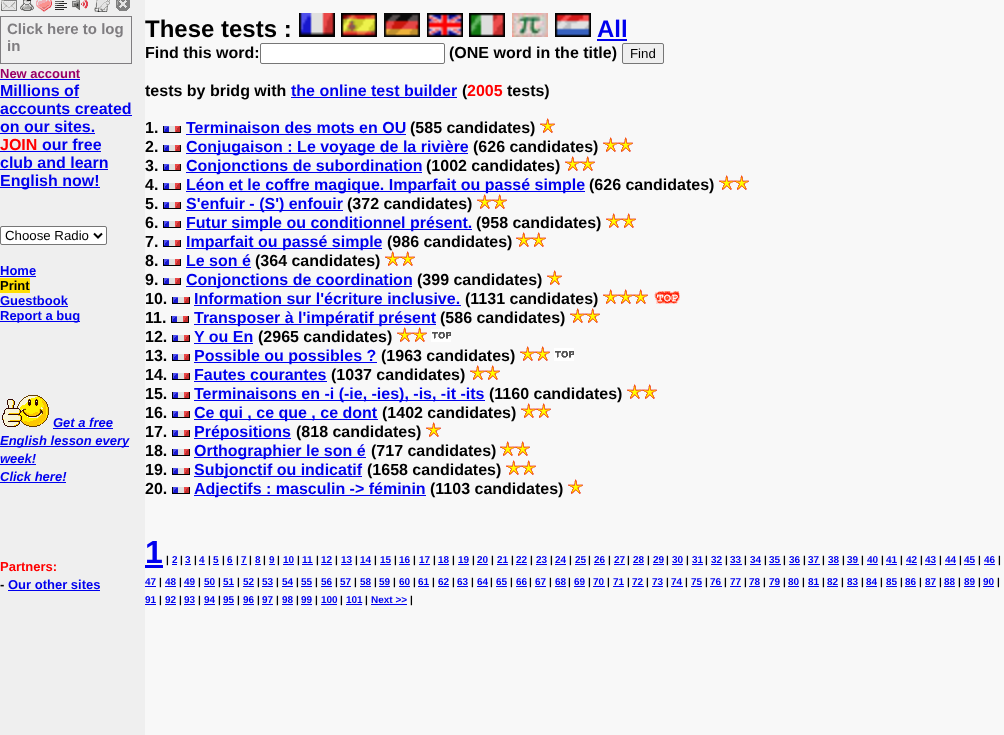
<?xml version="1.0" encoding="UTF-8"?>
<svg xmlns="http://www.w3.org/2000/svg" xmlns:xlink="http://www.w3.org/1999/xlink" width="1004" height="735">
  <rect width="100%" height="100%" fill="#efefef" />
  <image x="1" y="0" width="129" height="12" xlink:href="image1.png" />
  <rect x="0.5" y="16.5" width="131" height="47" fill="none" stroke="#7f7d80" />
  <rect y="79" width="80" height="1" fill="#0000ee" />
  <rect y="97" width="79" height="1" fill="#0000ee" />
  <rect y="115" width="132" height="1" fill="#0000ee" />
  <rect y="133" width="95" height="1" fill="#0000ee" />
  <rect y="151" width="101" height="1" fill="#0000ee" />
  <rect y="169" width="108" height="1" fill="#0000ee" />
  <rect y="187" width="100" height="1" fill="#0000ee" />
  <rect x="0.5" y="226.5" width="106" height="18" rx="1.5" fill="#ffffff" stroke="#767676" />
  <path d="M 94 233.5 l 4 4 l 4 -4" fill="none" stroke="#000000" stroke-width="2" />
  <rect y="276" width="36" height="1" fill="#0000ee" />
  <rect y="278" width="30" height="15" fill="#ffde02" />
  <rect y="306" width="68" height="1" fill="#0000ee" />
  <rect y="321" width="80" height="1" fill="#0000ee" />
  <image x="2" y="395" width="47" height="32" xlink:href="image2.png" />
  <rect x="53" y="428" width="60" height="1" fill="#0000ee" />
  <rect y="446" width="129" height="1" fill="#0000ee" />
  <rect y="464" width="36" height="1" fill="#0000ee" />
  <rect y="482" width="66" height="1" fill="#0000ee" />
  <rect x="8" y="590" width="92" height="1" fill="#0000ee" />
  <rect x="145" width="859" height="735" fill="#f8f8f8" />
  <image x="299" y="13" width="36" height="24" xlink:href="image3.png" />
  <image x="341" y="13" width="36" height="24" xlink:href="image4.png" />
  <image x="384" y="13" width="36" height="24" xlink:href="image5.png" />
  <image x="427" y="13" width="36" height="24" xlink:href="image6.png" />
  <image x="469" y="13" width="36" height="24" xlink:href="image7.png" />
  <image x="512" y="13" width="36" height="24" xlink:href="image8.png" />
  <image x="555" y="13" width="36" height="24" xlink:href="image9.png" />
  <rect x="597" y="39" width="30" height="2" fill="#0000ee" />
  <rect x="260.5" y="43.5" width="184" height="20" rx="1.5" fill="#ffffff" stroke="#767676" />
  <rect x="622.5" y="43.5" width="41" height="20" rx="1.5" fill="#efefef" stroke="#767676" />
  <rect x="291" y="97" width="166" height="1" fill="#0000ee" />
  <image x="163" y="126" width="18" height="7" xlink:href="image10.png" />
  <rect x="186" y="134" width="220" height="1" fill="#0000ee" />
  <image x="540" y="118" width="15" height="15" xlink:href="image11.png" />
  <image x="163" y="145" width="18" height="7" xlink:href="image10.png" />
  <rect x="186" y="153" width="282" height="1" fill="#0000ee" />
  <image x="603" y="137" width="15" height="15" xlink:href="image11.png" />
  <image x="618" y="137" width="15" height="15" xlink:href="image11.png" />
  <image x="163" y="164" width="18" height="7" xlink:href="image10.png" />
  <rect x="186" y="172" width="236" height="1" fill="#0000ee" />
  <image x="565" y="156" width="15" height="15" xlink:href="image11.png" />
  <image x="580" y="156" width="15" height="15" xlink:href="image11.png" />
  <image x="163" y="183" width="18" height="7" xlink:href="image10.png" />
  <rect x="186" y="191" width="399" height="1" fill="#0000ee" />
  <image x="719" y="175" width="15" height="15" xlink:href="image11.png" />
  <image x="734" y="175" width="15" height="15" xlink:href="image11.png" />
  <image x="163" y="202" width="18" height="7" xlink:href="image10.png" />
  <rect x="186" y="210" width="157" height="1" fill="#0000ee" />
  <image x="477" y="194" width="15" height="15" xlink:href="image11.png" />
  <image x="492" y="194" width="15" height="15" xlink:href="image11.png" />
  <image x="163" y="221" width="18" height="7" xlink:href="image10.png" />
  <rect x="186" y="229" width="286" height="1" fill="#0000ee" />
  <image x="606" y="213" width="15" height="15" xlink:href="image11.png" />
  <image x="621" y="213" width="15" height="15" xlink:href="image11.png" />
  <image x="163" y="240" width="18" height="7" xlink:href="image10.png" />
  <rect x="186" y="248" width="196" height="1" fill="#0000ee" />
  <image x="516" y="232" width="15" height="15" xlink:href="image11.png" />
  <image x="531" y="232" width="15" height="15" xlink:href="image11.png" />
  <image x="163" y="259" width="18" height="7" xlink:href="image10.png" />
  <rect x="186" y="267" width="65" height="1" fill="#0000ee" />
  <image x="385" y="251" width="15" height="15" xlink:href="image11.png" />
  <image x="400" y="251" width="15" height="15" xlink:href="image11.png" />
  <image x="163" y="278" width="18" height="7" xlink:href="image10.png" />
  <rect x="186" y="286" width="226" height="1" fill="#0000ee" />
  <image x="547" y="270" width="15" height="15" xlink:href="image11.png" />
  <image x="172" y="297" width="18" height="7" xlink:href="image10.png" />
  <rect x="194" y="305" width="267" height="1" fill="#0000ee" />
  <image x="603" y="289" width="15" height="15" xlink:href="image11.png" />
  <image x="618" y="289" width="15" height="15" xlink:href="image11.png" />
  <image x="633" y="289" width="15" height="15" xlink:href="image11.png" />
  <image x="654" y="291" width="26" height="13" xlink:href="image12.png" />
  <image x="171" y="316" width="18" height="7" xlink:href="image10.png" />
  <rect x="194" y="324" width="242" height="1" fill="#0000ee" />
  <image x="570" y="308" width="15" height="15" xlink:href="image11.png" />
  <image x="585" y="308" width="15" height="15" xlink:href="image11.png" />
  <image x="172" y="335" width="18" height="7" xlink:href="image10.png" />
  <rect x="194" y="343" width="59" height="1" fill="#0000ee" />
  <image x="397" y="327" width="15" height="15" xlink:href="image11.png" />
  <image x="412" y="327" width="15" height="15" xlink:href="image11.png" />
  <image x="431" y="329" width="20" height="13" xlink:href="image13.png" />
  <image x="172" y="354" width="18" height="7" xlink:href="image10.png" />
  <rect x="194" y="362" width="183" height="1" fill="#0000ee" />
  <image x="520" y="346" width="15" height="15" xlink:href="image11.png" />
  <image x="535" y="346" width="15" height="15" xlink:href="image11.png" />
  <image x="554" y="348" width="20" height="13" xlink:href="image13.png" />
  <image x="172" y="373" width="18" height="7" xlink:href="image10.png" />
  <rect x="194" y="381" width="133" height="1" fill="#0000ee" />
  <image x="470" y="365" width="15" height="15" xlink:href="image11.png" />
  <image x="485" y="365" width="15" height="15" xlink:href="image11.png" />
  <image x="172" y="392" width="18" height="7" xlink:href="image10.png" />
  <rect x="194" y="400" width="291" height="1" fill="#0000ee" />
  <image x="627" y="384" width="15" height="15" xlink:href="image11.png" />
  <image x="642" y="384" width="15" height="15" xlink:href="image11.png" />
  <image x="172" y="411" width="18" height="7" xlink:href="image10.png" />
  <rect x="194" y="419" width="184" height="1" fill="#0000ee" />
  <image x="521" y="403" width="15" height="15" xlink:href="image11.png" />
  <image x="536" y="403" width="15" height="15" xlink:href="image11.png" />
  <image x="172" y="430" width="18" height="7" xlink:href="image10.png" />
  <rect x="194" y="438" width="97" height="1" fill="#0000ee" />
  <image x="426" y="422" width="15" height="15" xlink:href="image11.png" />
  <image x="172" y="449" width="18" height="7" xlink:href="image10.png" />
  <rect x="194" y="457" width="172" height="1" fill="#0000ee" />
  <image x="500" y="441" width="15" height="15" xlink:href="image11.png" />
  <image x="515" y="441" width="15" height="15" xlink:href="image11.png" />
  <image x="172" y="468" width="18" height="7" xlink:href="image10.png" />
  <rect x="194" y="476" width="168" height="1" fill="#0000ee" />
  <image x="506" y="460" width="15" height="15" xlink:href="image11.png" />
  <image x="521" y="460" width="15" height="15" xlink:href="image11.png" />
  <image x="172" y="487" width="18" height="7" xlink:href="image10.png" />
  <rect x="194" y="495" width="232" height="1" fill="#0000ee" />
  <image x="568" y="479" width="15" height="15" xlink:href="image11.png" />
  <rect x="145" y="565" width="18" height="3" fill="#0000ee" />
  <rect x="172" y="564" width="5" height="1" fill="#0000ee" />
  <rect x="185" y="564" width="6" height="1" fill="#0000ee" />
  <rect x="199" y="564" width="6" height="1" fill="#0000ee" />
  <rect x="213" y="564" width="6" height="1" fill="#0000ee" />
  <rect x="227" y="564" width="6" height="1" fill="#0000ee" />
  <rect x="241" y="564" width="6" height="1" fill="#0000ee" />
  <rect x="255" y="564" width="6" height="1" fill="#0000ee" />
  <rect x="269" y="564" width="6" height="1" fill="#0000ee" />
  <rect x="283" y="564" width="11" height="1" fill="#0000ee" />
  <rect x="302" y="564" width="11" height="1" fill="#0000ee" />
  <rect x="321" y="564" width="11" height="1" fill="#0000ee" />
  <rect x="341" y="564" width="11" height="1" fill="#0000ee" />
  <rect x="360" y="564" width="11" height="1" fill="#0000ee" />
  <rect x="380" y="564" width="11" height="1" fill="#0000ee" />
  <rect x="399" y="564" width="11" height="1" fill="#0000ee" />
  <rect x="419" y="564" width="11" height="1" fill="#0000ee" />
  <rect x="438" y="564" width="11" height="1" fill="#0000ee" />
  <rect x="458" y="564" width="11" height="1" fill="#0000ee" />
  <rect x="477" y="564" width="11" height="1" fill="#0000ee" />
  <rect x="497" y="564" width="11" height="1" fill="#0000ee" />
  <rect x="516" y="564" width="11" height="1" fill="#0000ee" />
  <rect x="536" y="564" width="11" height="1" fill="#0000ee" />
  <rect x="555" y="564" width="11" height="1" fill="#0000ee" />
  <rect x="575" y="564" width="11" height="1" fill="#0000ee" />
  <rect x="594" y="564" width="11" height="1" fill="#0000ee" />
  <rect x="614" y="564" width="11" height="1" fill="#0000ee" />
  <rect x="633" y="564" width="11" height="1" fill="#0000ee" />
  <rect x="653" y="564" width="11" height="1" fill="#0000ee" />
  <rect x="672" y="564" width="11" height="1" fill="#0000ee" />
  <rect x="692" y="564" width="11" height="1" fill="#0000ee" />
  <rect x="711" y="564" width="11" height="1" fill="#0000ee" />
  <rect x="730" y="564" width="12" height="1" fill="#0000ee" />
  <rect x="750" y="564" width="11" height="1" fill="#0000ee" />
  <rect x="769" y="564" width="12" height="1" fill="#0000ee" />
  <rect x="789" y="564" width="11" height="1" fill="#0000ee" />
  <rect x="808" y="564" width="12" height="1" fill="#0000ee" />
  <rect x="828" y="564" width="11" height="1" fill="#0000ee" />
  <rect x="847" y="564" width="12" height="1" fill="#0000ee" />
  <rect x="867" y="564" width="11" height="1" fill="#0000ee" />
  <rect x="886" y="564" width="11" height="1" fill="#0000ee" />
  <rect x="906" y="564" width="11" height="1" fill="#0000ee" />
  <rect x="925" y="564" width="11" height="1" fill="#0000ee" />
  <rect x="945" y="564" width="11" height="1" fill="#0000ee" />
  <rect x="964" y="564" width="11" height="1" fill="#0000ee" />
  <rect x="984" y="564" width="11" height="1" fill="#0000ee" />
  <rect x="145" y="586" width="11" height="1" fill="#0000ee" />
  <rect x="165" y="586" width="11" height="1" fill="#0000ee" />
  <rect x="184" y="586" width="11" height="1" fill="#0000ee" />
  <rect x="204" y="586" width="11" height="1" fill="#0000ee" />
  <rect x="223" y="586" width="11" height="1" fill="#0000ee" />
  <rect x="243" y="586" width="11" height="1" fill="#0000ee" />
  <rect x="262" y="586" width="11" height="1" fill="#0000ee" />
  <rect x="282" y="586" width="11" height="1" fill="#0000ee" />
  <rect x="301" y="586" width="11" height="1" fill="#0000ee" />
  <rect x="321" y="586" width="11" height="1" fill="#0000ee" />
  <rect x="340" y="586" width="11" height="1" fill="#0000ee" />
  <rect x="360" y="586" width="11" height="1" fill="#0000ee" />
  <rect x="379" y="586" width="11" height="1" fill="#0000ee" />
  <rect x="399" y="586" width="11" height="1" fill="#0000ee" />
  <rect x="418" y="586" width="11" height="1" fill="#0000ee" />
  <rect x="438" y="586" width="11" height="1" fill="#0000ee" />
  <rect x="457" y="586" width="11" height="1" fill="#0000ee" />
  <rect x="477" y="586" width="11" height="1" fill="#0000ee" />
  <rect x="496" y="586" width="11" height="1" fill="#0000ee" />
  <rect x="516" y="586" width="11" height="1" fill="#0000ee" />
  <rect x="535" y="586" width="11" height="1" fill="#0000ee" />
  <rect x="555" y="586" width="11" height="1" fill="#0000ee" />
  <rect x="574" y="586" width="11" height="1" fill="#0000ee" />
  <rect x="593" y="586" width="12" height="1" fill="#0000ee" />
  <rect x="613" y="586" width="11" height="1" fill="#0000ee" />
  <rect x="632" y="586" width="12" height="1" fill="#0000ee" />
  <rect x="652" y="586" width="11" height="1" fill="#0000ee" />
  <rect x="671" y="586" width="12" height="1" fill="#0000ee" />
  <rect x="691" y="586" width="11" height="1" fill="#0000ee" />
  <rect x="710" y="586" width="12" height="1" fill="#0000ee" />
  <rect x="730" y="586" width="11" height="1" fill="#0000ee" />
  <rect x="749" y="586" width="11" height="1" fill="#0000ee" />
  <rect x="769" y="586" width="11" height="1" fill="#0000ee" />
  <rect x="788" y="586" width="11" height="1" fill="#0000ee" />
  <rect x="808" y="586" width="11" height="1" fill="#0000ee" />
  <rect x="827" y="586" width="11" height="1" fill="#0000ee" />
  <rect x="847" y="586" width="11" height="1" fill="#0000ee" />
  <rect x="866" y="586" width="11" height="1" fill="#0000ee" />
  <rect x="886" y="586" width="11" height="1" fill="#0000ee" />
  <rect x="905" y="586" width="11" height="1" fill="#0000ee" />
  <rect x="925" y="586" width="11" height="1" fill="#0000ee" />
  <rect x="944" y="586" width="11" height="1" fill="#0000ee" />
  <rect x="964" y="586" width="11" height="1" fill="#0000ee" />
  <rect x="983" y="586" width="11" height="1" fill="#0000ee" />
  <rect x="145" y="604" width="11" height="1" fill="#0000ee" />
  <rect x="165" y="604" width="11" height="1" fill="#0000ee" />
  <rect x="184" y="604" width="11" height="1" fill="#0000ee" />
  <rect x="204" y="604" width="11" height="1" fill="#0000ee" />
  <rect x="223" y="604" width="11" height="1" fill="#0000ee" />
  <rect x="243" y="604" width="11" height="1" fill="#0000ee" />
  <rect x="262" y="604" width="11" height="1" fill="#0000ee" />
  <rect x="282" y="604" width="11" height="1" fill="#0000ee" />
  <rect x="301" y="604" width="11" height="1" fill="#0000ee" />
  <rect x="321" y="604" width="16" height="1" fill="#0000ee" />
  <rect x="346" y="604" width="16" height="1" fill="#0000ee" />
  <rect x="371" y="604" width="36" height="1" fill="#0000ee" />
  <text x="7" y="34" style="font-family: Liberation Sans; font-size: 15px; font-weight: bold; fill: #7f7d80">Click here to log</text>
  <text x="7" y="51" style="font-family: Liberation Sans; font-size: 15px; font-weight: bold; fill: #7f7d80">in</text>
  <text x="0" y="78" style="font-family: Liberation Sans; font-size: 13px; font-weight: bold; fill: #990066">New account</text>
  <text x="0" y="96" style="font-family: Liberation Sans; font-size: 16px; font-weight: bold; fill: #0000ee">Millions of</text>
  <text x="0" y="114" style="font-family: Liberation Sans; font-size: 16px; font-weight: bold; fill: #0000ee">accounts created</text>
  <text x="0" y="132" style="font-family: Liberation Sans; font-size: 16px; font-weight: bold; fill: #0000ee">on our sites.</text>
  <text x="0" y="150" style="font-family: Liberation Sans; font-size: 16px; font-weight: bold; fill: #ff0000">JOIN</text>
  <text x="42" y="150" style="font-family: Liberation Sans; font-size: 16px; font-weight: bold; fill: #0000ee">our free</text>
  <text x="0" y="168" style="font-family: Liberation Sans; font-size: 16px; font-weight: bold; fill: #0000ee">club and learn</text>
  <text x="0" y="186" style="font-family: Liberation Sans; font-size: 16px; font-weight: bold; fill: #0000ee">English now!</text>
  <text x="5" y="240" style="font-family: Liberation Sans; font-size: 13.25px; fill: #000000">Choose Radio</text>
  <text x="0" y="275" style="font-family: Liberation Sans; font-size: 13px; font-weight: bold; fill: #0000ee">Home</text>
  <text x="0" y="290" style="font-family: Liberation Sans; font-size: 13px; font-weight: bold; fill: #000000">Print</text>
  <text x="0" y="305" style="font-family: Liberation Sans; font-size: 13px; font-weight: bold; fill: #0000ee">Guestbook</text>
  <text x="0" y="320" style="font-family: Liberation Sans; font-size: 13px; font-weight: bold; fill: #0000ee">Report a bug</text>
  <text x="53" y="427" style="font-family: Liberation Sans; font-size: 13px; font-weight: bold; font-style: italic; fill: #0000ee">Get a free</text>
  <text x="0" y="445" style="font-family: Liberation Sans; font-size: 13px; font-weight: bold; font-style: italic; fill: #0000ee">English lesson every</text>
  <text x="0" y="463" style="font-family: Liberation Sans; font-size: 13px; font-weight: bold; font-style: italic; fill: #0000ee">week!</text>
  <text x="0" y="481" style="font-family: Liberation Sans; font-size: 13px; font-weight: bold; font-style: italic; fill: #0000ee">Click here!</text>
  <text x="0" y="571" style="font-family: Liberation Sans; font-size: 13px; font-weight: bold; fill: #ff0000">Partners:</text>
  <text x="0" y="589" style="font-family: Liberation Sans; font-size: 13px; font-weight: bold; fill: #000000">-</text>
  <text x="8" y="589" style="font-family: Liberation Sans; font-size: 13px; font-weight: bold; fill: #0000ee">Our other sites</text>
  <text x="145" y="37" style="font-family: Liberation Sans; font-size: 24px; font-weight: bold; fill: #000000">These tests :</text>
  <text x="597" y="37" style="font-family: Liberation Sans; font-size: 24px; font-weight: bold; fill: #0000ee">All</text>
  <text x="145" y="58" style="font-family: Liberation Sans; font-size: 16px; font-weight: bold; fill: #000000">Find this word:</text>
  <text x="449" y="58" style="font-family: Liberation Sans; font-size: 16px; font-weight: bold; fill: #000000">(ONE word in the title)</text>
  <text x="630" y="58" style="font-family: Liberation Sans; font-size: 13.25px; fill: #000000">Find</text>
  <text x="145" y="96" style="font-family: Liberation Sans; font-size: 16px; font-weight: bold; fill: #000000">tests by bridg with</text>
  <text x="291" y="96" style="font-family: Liberation Sans; font-size: 16px; font-weight: bold; fill: #0000ee">the online test builder</text>
  <text x="462" y="96" style="font-family: Liberation Sans; font-size: 16px; font-weight: bold; fill: #000000">(</text>
  <text x="467" y="96" style="font-family: Liberation Sans; font-size: 16px; font-weight: bold; fill: #ff0000">2005</text>
  <text x="507" y="96" style="font-family: Liberation Sans; font-size: 16px; font-weight: bold; fill: #000000">tests)</text>
  <text x="145" y="133" style="font-family: Liberation Sans; font-size: 16px; font-weight: bold; fill: #000000">1.</text>
  <text x="186" y="133" style="font-family: Liberation Sans; font-size: 16px; font-weight: bold; fill: #0000ee">Terminaison des mots en OU</text>
  <text x="410" y="133" style="font-family: Liberation Sans; font-size: 16px; font-weight: bold; fill: #000000">(585 candidates)</text>
  <text x="145" y="152" style="font-family: Liberation Sans; font-size: 16px; font-weight: bold; fill: #000000">2.</text>
  <text x="186" y="152" style="font-family: Liberation Sans; font-size: 16px; font-weight: bold; fill: #0000ee">Conjugaison : Le voyage de la rivière</text>
  <text x="473" y="152" style="font-family: Liberation Sans; font-size: 16px; font-weight: bold; fill: #000000">(626 candidates)</text>
  <text x="145" y="171" style="font-family: Liberation Sans; font-size: 16px; font-weight: bold; fill: #000000">3.</text>
  <text x="186" y="171" style="font-family: Liberation Sans; font-size: 16px; font-weight: bold; fill: #0000ee">Conjonctions de subordination</text>
  <text x="426" y="171" style="font-family: Liberation Sans; font-size: 16px; font-weight: bold; fill: #000000">(1002 candidates)</text>
  <text x="145" y="190" style="font-family: Liberation Sans; font-size: 16px; font-weight: bold; fill: #000000">4.</text>
  <text x="186" y="190" style="font-family: Liberation Sans; font-size: 16px; font-weight: bold; fill: #0000ee">Léon et le coffre magique. Imparfait ou passé simple</text>
  <text x="589" y="190" style="font-family: Liberation Sans; font-size: 16px; font-weight: bold; fill: #000000">(626 candidates)</text>
  <text x="145" y="209" style="font-family: Liberation Sans; font-size: 16px; font-weight: bold; fill: #000000">5.</text>
  <text x="186" y="209" style="font-family: Liberation Sans; font-size: 16px; font-weight: bold; fill: #0000ee">S'enfuir - (S') enfouir</text>
  <text x="347" y="209" style="font-family: Liberation Sans; font-size: 16px; font-weight: bold; fill: #000000">(372 candidates)</text>
  <text x="145" y="228" style="font-family: Liberation Sans; font-size: 16px; font-weight: bold; fill: #000000">6.</text>
  <text x="186" y="228" style="font-family: Liberation Sans; font-size: 16px; font-weight: bold; fill: #0000ee">Futur simple ou conditionnel présent.</text>
  <text x="476" y="228" style="font-family: Liberation Sans; font-size: 16px; font-weight: bold; fill: #000000">(958 candidates)</text>
  <text x="145" y="247" style="font-family: Liberation Sans; font-size: 16px; font-weight: bold; fill: #000000">7.</text>
  <text x="186" y="247" style="font-family: Liberation Sans; font-size: 16px; font-weight: bold; fill: #0000ee">Imparfait ou passé simple</text>
  <text x="387" y="247" style="font-family: Liberation Sans; font-size: 16px; font-weight: bold; fill: #000000">(986 candidates)</text>
  <text x="145" y="266" style="font-family: Liberation Sans; font-size: 16px; font-weight: bold; fill: #000000">8.</text>
  <text x="186" y="266" style="font-family: Liberation Sans; font-size: 16px; font-weight: bold; fill: #0000ee">Le son é</text>
  <text x="255" y="266" style="font-family: Liberation Sans; font-size: 16px; font-weight: bold; fill: #000000">(364 candidates)</text>
  <text x="145" y="285" style="font-family: Liberation Sans; font-size: 16px; font-weight: bold; fill: #000000">9.</text>
  <text x="186" y="285" style="font-family: Liberation Sans; font-size: 16px; font-weight: bold; fill: #0000ee">Conjonctions de coordination</text>
  <text x="417" y="285" style="font-family: Liberation Sans; font-size: 16px; font-weight: bold; fill: #000000">(399 candidates)</text>
  <text x="145" y="304" style="font-family: Liberation Sans; font-size: 16px; font-weight: bold; fill: #000000">10.</text>
  <text x="194" y="304" style="font-family: Liberation Sans; font-size: 16px; font-weight: bold; fill: #0000ee">Information sur l'écriture inclusive.</text>
  <text x="465" y="304" style="font-family: Liberation Sans; font-size: 16px; font-weight: bold; fill: #000000">(1131 candidates)</text>
  <text x="145" y="323" style="font-family: Liberation Sans; font-size: 16px; font-weight: bold; fill: #000000">11.</text>
  <text x="194" y="323" style="font-family: Liberation Sans; font-size: 16px; font-weight: bold; fill: #0000ee">Transposer à l'impératif présent</text>
  <text x="440" y="323" style="font-family: Liberation Sans; font-size: 16px; font-weight: bold; fill: #000000">(586 candidates)</text>
  <text x="145" y="342" style="font-family: Liberation Sans; font-size: 16px; font-weight: bold; fill: #000000">12.</text>
  <text x="194" y="342" style="font-family: Liberation Sans; font-size: 16px; font-weight: bold; fill: #0000ee">Y ou En</text>
  <text x="258" y="342" style="font-family: Liberation Sans; font-size: 16px; font-weight: bold; fill: #000000">(2965 candidates)</text>
  <text x="145" y="361" style="font-family: Liberation Sans; font-size: 16px; font-weight: bold; fill: #000000">13.</text>
  <text x="194" y="361" style="font-family: Liberation Sans; font-size: 16px; font-weight: bold; fill: #0000ee">Possible ou possibles ?</text>
  <text x="381" y="361" style="font-family: Liberation Sans; font-size: 16px; font-weight: bold; fill: #000000">(1963 candidates)</text>
  <text x="145" y="380" style="font-family: Liberation Sans; font-size: 16px; font-weight: bold; fill: #000000">14.</text>
  <text x="194" y="380" style="font-family: Liberation Sans; font-size: 16px; font-weight: bold; fill: #0000ee">Fautes courantes</text>
  <text x="331" y="380" style="font-family: Liberation Sans; font-size: 16px; font-weight: bold; fill: #000000">(1037 candidates)</text>
  <text x="145" y="399" style="font-family: Liberation Sans; font-size: 16px; font-weight: bold; fill: #000000">15.</text>
  <text x="194" y="399" style="font-family: Liberation Sans; font-size: 16px; font-weight: bold; fill: #0000ee">Terminaisons en -i (-ie, -ies), -is, -it -its</text>
  <text x="489" y="399" style="font-family: Liberation Sans; font-size: 16px; font-weight: bold; fill: #000000">(1160 candidates)</text>
  <text x="145" y="418" style="font-family: Liberation Sans; font-size: 16px; font-weight: bold; fill: #000000">16.</text>
  <text x="194" y="418" style="font-family: Liberation Sans; font-size: 16px; font-weight: bold; fill: #0000ee">Ce qui , ce que , ce dont</text>
  <text x="382" y="418" style="font-family: Liberation Sans; font-size: 16px; font-weight: bold; fill: #000000">(1402 candidates)</text>
  <text x="145" y="437" style="font-family: Liberation Sans; font-size: 16px; font-weight: bold; fill: #000000">17.</text>
  <text x="194" y="437" style="font-family: Liberation Sans; font-size: 16px; font-weight: bold; fill: #0000ee">Prépositions</text>
  <text x="296" y="437" style="font-family: Liberation Sans; font-size: 16px; font-weight: bold; fill: #000000">(818 candidates)</text>
  <text x="145" y="456" style="font-family: Liberation Sans; font-size: 16px; font-weight: bold; fill: #000000">18.</text>
  <text x="194" y="456" style="font-family: Liberation Sans; font-size: 16px; font-weight: bold; fill: #0000ee">Orthographier le son é</text>
  <text x="371" y="456" style="font-family: Liberation Sans; font-size: 16px; font-weight: bold; fill: #000000">(717 candidates)</text>
  <text x="145" y="475" style="font-family: Liberation Sans; font-size: 16px; font-weight: bold; fill: #000000">19.</text>
  <text x="194" y="475" style="font-family: Liberation Sans; font-size: 16px; font-weight: bold; fill: #0000ee">Subjonctif ou indicatif</text>
  <text x="367" y="475" style="font-family: Liberation Sans; font-size: 16px; font-weight: bold; fill: #000000">(1658 candidates)</text>
  <text x="145" y="494" style="font-family: Liberation Sans; font-size: 16px; font-weight: bold; fill: #000000">20.</text>
  <text x="194" y="494" style="font-family: Liberation Sans; font-size: 16px; font-weight: bold; fill: #0000ee">Adjectifs : masculin -&gt; féminin</text>
  <text x="430" y="494" style="font-family: Liberation Sans; font-size: 16px; font-weight: bold; fill: #000000">(1103 candidates)</text>
  <text x="145" y="563" style="font-family: Liberation Sans; font-size: 32px; font-weight: bold; fill: #0000ee">1</text>
  <text x="166" y="563" style="font-family: Liberation Sans; font-size: 10px; font-weight: bold; fill: #000000">|</text>
  <text x="172" y="563" style="font-family: Liberation Sans; font-size: 10px; font-weight: bold; fill: #0000ee">2</text>
  <text x="180" y="563" style="font-family: Liberation Sans; font-size: 10px; font-weight: bold; fill: #000000">|</text>
  <text x="185" y="563" style="font-family: Liberation Sans; font-size: 10px; font-weight: bold; fill: #0000ee">3</text>
  <text x="194" y="563" style="font-family: Liberation Sans; font-size: 10px; font-weight: bold; fill: #000000">|</text>
  <text x="199" y="563" style="font-family: Liberation Sans; font-size: 10px; font-weight: bold; fill: #0000ee">4</text>
  <text x="208" y="563" style="font-family: Liberation Sans; font-size: 10px; font-weight: bold; fill: #000000">|</text>
  <text x="213" y="563" style="font-family: Liberation Sans; font-size: 10px; font-weight: bold; fill: #0000ee">5</text>
  <text x="222" y="563" style="font-family: Liberation Sans; font-size: 10px; font-weight: bold; fill: #000000">|</text>
  <text x="227" y="563" style="font-family: Liberation Sans; font-size: 10px; font-weight: bold; fill: #0000ee">6</text>
  <text x="236" y="563" style="font-family: Liberation Sans; font-size: 10px; font-weight: bold; fill: #000000">|</text>
  <text x="241" y="563" style="font-family: Liberation Sans; font-size: 10px; font-weight: bold; fill: #0000ee">7</text>
  <text x="249" y="563" style="font-family: Liberation Sans; font-size: 10px; font-weight: bold; fill: #000000">|</text>
  <text x="255" y="563" style="font-family: Liberation Sans; font-size: 10px; font-weight: bold; fill: #0000ee">8</text>
  <text x="263" y="563" style="font-family: Liberation Sans; font-size: 10px; font-weight: bold; fill: #000000">|</text>
  <text x="269" y="563" style="font-family: Liberation Sans; font-size: 10px; font-weight: bold; fill: #0000ee">9</text>
  <text x="277" y="563" style="font-family: Liberation Sans; font-size: 10px; font-weight: bold; fill: #000000">|</text>
  <text x="283" y="563" style="font-family: Liberation Sans; font-size: 10px; font-weight: bold; fill: #0000ee">10</text>
  <text x="297" y="563" style="font-family: Liberation Sans; font-size: 10px; font-weight: bold; fill: #000000">|</text>
  <text x="302" y="563" style="font-family: Liberation Sans; font-size: 10px; font-weight: bold; fill: #0000ee">11</text>
  <text x="316" y="563" style="font-family: Liberation Sans; font-size: 10px; font-weight: bold; fill: #000000">|</text>
  <text x="321" y="563" style="font-family: Liberation Sans; font-size: 10px; font-weight: bold; fill: #0000ee">12</text>
  <text x="335" y="563" style="font-family: Liberation Sans; font-size: 10px; font-weight: bold; fill: #000000">|</text>
  <text x="341" y="563" style="font-family: Liberation Sans; font-size: 10px; font-weight: bold; fill: #0000ee">13</text>
  <text x="355" y="563" style="font-family: Liberation Sans; font-size: 10px; font-weight: bold; fill: #000000">|</text>
  <text x="360" y="563" style="font-family: Liberation Sans; font-size: 10px; font-weight: bold; fill: #0000ee">14</text>
  <text x="374" y="563" style="font-family: Liberation Sans; font-size: 10px; font-weight: bold; fill: #000000">|</text>
  <text x="380" y="563" style="font-family: Liberation Sans; font-size: 10px; font-weight: bold; fill: #0000ee">15</text>
  <text x="394" y="563" style="font-family: Liberation Sans; font-size: 10px; font-weight: bold; fill: #000000">|</text>
  <text x="399" y="563" style="font-family: Liberation Sans; font-size: 10px; font-weight: bold; fill: #0000ee">16</text>
  <text x="413" y="563" style="font-family: Liberation Sans; font-size: 10px; font-weight: bold; fill: #000000">|</text>
  <text x="419" y="563" style="font-family: Liberation Sans; font-size: 10px; font-weight: bold; fill: #0000ee">17</text>
  <text x="433" y="563" style="font-family: Liberation Sans; font-size: 10px; font-weight: bold; fill: #000000">|</text>
  <text x="438" y="563" style="font-family: Liberation Sans; font-size: 10px; font-weight: bold; fill: #0000ee">18</text>
  <text x="452" y="563" style="font-family: Liberation Sans; font-size: 10px; font-weight: bold; fill: #000000">|</text>
  <text x="458" y="563" style="font-family: Liberation Sans; font-size: 10px; font-weight: bold; fill: #0000ee">19</text>
  <text x="472" y="563" style="font-family: Liberation Sans; font-size: 10px; font-weight: bold; fill: #000000">|</text>
  <text x="477" y="563" style="font-family: Liberation Sans; font-size: 10px; font-weight: bold; fill: #0000ee">20</text>
  <text x="491" y="563" style="font-family: Liberation Sans; font-size: 10px; font-weight: bold; fill: #000000">|</text>
  <text x="497" y="563" style="font-family: Liberation Sans; font-size: 10px; font-weight: bold; fill: #0000ee">21</text>
  <text x="511" y="563" style="font-family: Liberation Sans; font-size: 10px; font-weight: bold; fill: #000000">|</text>
  <text x="516" y="563" style="font-family: Liberation Sans; font-size: 10px; font-weight: bold; fill: #0000ee">22</text>
  <text x="530" y="563" style="font-family: Liberation Sans; font-size: 10px; font-weight: bold; fill: #000000">|</text>
  <text x="536" y="563" style="font-family: Liberation Sans; font-size: 10px; font-weight: bold; fill: #0000ee">23</text>
  <text x="550" y="563" style="font-family: Liberation Sans; font-size: 10px; font-weight: bold; fill: #000000">|</text>
  <text x="555" y="563" style="font-family: Liberation Sans; font-size: 10px; font-weight: bold; fill: #0000ee">24</text>
  <text x="569" y="563" style="font-family: Liberation Sans; font-size: 10px; font-weight: bold; fill: #000000">|</text>
  <text x="575" y="563" style="font-family: Liberation Sans; font-size: 10px; font-weight: bold; fill: #0000ee">25</text>
  <text x="588" y="563" style="font-family: Liberation Sans; font-size: 10px; font-weight: bold; fill: #000000">|</text>
  <text x="594" y="563" style="font-family: Liberation Sans; font-size: 10px; font-weight: bold; fill: #0000ee">26</text>
  <text x="608" y="563" style="font-family: Liberation Sans; font-size: 10px; font-weight: bold; fill: #000000">|</text>
  <text x="614" y="563" style="font-family: Liberation Sans; font-size: 10px; font-weight: bold; fill: #0000ee">27</text>
  <text x="627" y="563" style="font-family: Liberation Sans; font-size: 10px; font-weight: bold; fill: #000000">|</text>
  <text x="633" y="563" style="font-family: Liberation Sans; font-size: 10px; font-weight: bold; fill: #0000ee">28</text>
  <text x="647" y="563" style="font-family: Liberation Sans; font-size: 10px; font-weight: bold; fill: #000000">|</text>
  <text x="653" y="563" style="font-family: Liberation Sans; font-size: 10px; font-weight: bold; fill: #0000ee">29</text>
  <text x="666" y="563" style="font-family: Liberation Sans; font-size: 10px; font-weight: bold; fill: #000000">|</text>
  <text x="672" y="563" style="font-family: Liberation Sans; font-size: 10px; font-weight: bold; fill: #0000ee">30</text>
  <text x="686" y="563" style="font-family: Liberation Sans; font-size: 10px; font-weight: bold; fill: #000000">|</text>
  <text x="692" y="563" style="font-family: Liberation Sans; font-size: 10px; font-weight: bold; fill: #0000ee">31</text>
  <text x="705" y="563" style="font-family: Liberation Sans; font-size: 10px; font-weight: bold; fill: #000000">|</text>
  <text x="711" y="563" style="font-family: Liberation Sans; font-size: 10px; font-weight: bold; fill: #0000ee">32</text>
  <text x="725" y="563" style="font-family: Liberation Sans; font-size: 10px; font-weight: bold; fill: #000000">|</text>
  <text x="730" y="563" style="font-family: Liberation Sans; font-size: 10px; font-weight: bold; fill: #0000ee">33</text>
  <text x="744" y="563" style="font-family: Liberation Sans; font-size: 10px; font-weight: bold; fill: #000000">|</text>
  <text x="750" y="563" style="font-family: Liberation Sans; font-size: 10px; font-weight: bold; fill: #0000ee">34</text>
  <text x="764" y="563" style="font-family: Liberation Sans; font-size: 10px; font-weight: bold; fill: #000000">|</text>
  <text x="769" y="563" style="font-family: Liberation Sans; font-size: 10px; font-weight: bold; fill: #0000ee">35</text>
  <text x="783" y="563" style="font-family: Liberation Sans; font-size: 10px; font-weight: bold; fill: #000000">|</text>
  <text x="789" y="563" style="font-family: Liberation Sans; font-size: 10px; font-weight: bold; fill: #0000ee">36</text>
  <text x="803" y="563" style="font-family: Liberation Sans; font-size: 10px; font-weight: bold; fill: #000000">|</text>
  <text x="808" y="563" style="font-family: Liberation Sans; font-size: 10px; font-weight: bold; fill: #0000ee">37</text>
  <text x="822" y="563" style="font-family: Liberation Sans; font-size: 10px; font-weight: bold; fill: #000000">|</text>
  <text x="828" y="563" style="font-family: Liberation Sans; font-size: 10px; font-weight: bold; fill: #0000ee">38</text>
  <text x="842" y="563" style="font-family: Liberation Sans; font-size: 10px; font-weight: bold; fill: #000000">|</text>
  <text x="847" y="563" style="font-family: Liberation Sans; font-size: 10px; font-weight: bold; fill: #0000ee">39</text>
  <text x="861" y="563" style="font-family: Liberation Sans; font-size: 10px; font-weight: bold; fill: #000000">|</text>
  <text x="867" y="563" style="font-family: Liberation Sans; font-size: 10px; font-weight: bold; fill: #0000ee">40</text>
  <text x="881" y="563" style="font-family: Liberation Sans; font-size: 10px; font-weight: bold; fill: #000000">|</text>
  <text x="886" y="563" style="font-family: Liberation Sans; font-size: 10px; font-weight: bold; fill: #0000ee">41</text>
  <text x="900" y="563" style="font-family: Liberation Sans; font-size: 10px; font-weight: bold; fill: #000000">|</text>
  <text x="906" y="563" style="font-family: Liberation Sans; font-size: 10px; font-weight: bold; fill: #0000ee">42</text>
  <text x="920" y="563" style="font-family: Liberation Sans; font-size: 10px; font-weight: bold; fill: #000000">|</text>
  <text x="925" y="563" style="font-family: Liberation Sans; font-size: 10px; font-weight: bold; fill: #0000ee">43</text>
  <text x="939" y="563" style="font-family: Liberation Sans; font-size: 10px; font-weight: bold; fill: #000000">|</text>
  <text x="945" y="563" style="font-family: Liberation Sans; font-size: 10px; font-weight: bold; fill: #0000ee">44</text>
  <text x="959" y="563" style="font-family: Liberation Sans; font-size: 10px; font-weight: bold; fill: #000000">|</text>
  <text x="964" y="563" style="font-family: Liberation Sans; font-size: 10px; font-weight: bold; fill: #0000ee">45</text>
  <text x="978" y="563" style="font-family: Liberation Sans; font-size: 10px; font-weight: bold; fill: #000000">|</text>
  <text x="984" y="563" style="font-family: Liberation Sans; font-size: 10px; font-weight: bold; fill: #0000ee">46</text>
  <text x="998" y="563" style="font-family: Liberation Sans; font-size: 10px; font-weight: bold; fill: #000000">|</text>
  <text x="145" y="585" style="font-family: Liberation Sans; font-size: 10px; font-weight: bold; fill: #0000ee">47</text>
  <text x="159" y="585" style="font-family: Liberation Sans; font-size: 10px; font-weight: bold; fill: #000000">|</text>
  <text x="165" y="585" style="font-family: Liberation Sans; font-size: 10px; font-weight: bold; fill: #0000ee">48</text>
  <text x="179" y="585" style="font-family: Liberation Sans; font-size: 10px; font-weight: bold; fill: #000000">|</text>
  <text x="184" y="585" style="font-family: Liberation Sans; font-size: 10px; font-weight: bold; fill: #0000ee">49</text>
  <text x="198" y="585" style="font-family: Liberation Sans; font-size: 10px; font-weight: bold; fill: #000000">|</text>
  <text x="204" y="585" style="font-family: Liberation Sans; font-size: 10px; font-weight: bold; fill: #0000ee">50</text>
  <text x="218" y="585" style="font-family: Liberation Sans; font-size: 10px; font-weight: bold; fill: #000000">|</text>
  <text x="223" y="585" style="font-family: Liberation Sans; font-size: 10px; font-weight: bold; fill: #0000ee">51</text>
  <text x="237" y="585" style="font-family: Liberation Sans; font-size: 10px; font-weight: bold; fill: #000000">|</text>
  <text x="243" y="585" style="font-family: Liberation Sans; font-size: 10px; font-weight: bold; fill: #0000ee">52</text>
  <text x="257" y="585" style="font-family: Liberation Sans; font-size: 10px; font-weight: bold; fill: #000000">|</text>
  <text x="262" y="585" style="font-family: Liberation Sans; font-size: 10px; font-weight: bold; fill: #0000ee">53</text>
  <text x="276" y="585" style="font-family: Liberation Sans; font-size: 10px; font-weight: bold; fill: #000000">|</text>
  <text x="282" y="585" style="font-family: Liberation Sans; font-size: 10px; font-weight: bold; fill: #0000ee">54</text>
  <text x="296" y="585" style="font-family: Liberation Sans; font-size: 10px; font-weight: bold; fill: #000000">|</text>
  <text x="301" y="585" style="font-family: Liberation Sans; font-size: 10px; font-weight: bold; fill: #0000ee">55</text>
  <text x="315" y="585" style="font-family: Liberation Sans; font-size: 10px; font-weight: bold; fill: #000000">|</text>
  <text x="321" y="585" style="font-family: Liberation Sans; font-size: 10px; font-weight: bold; fill: #0000ee">56</text>
  <text x="335" y="585" style="font-family: Liberation Sans; font-size: 10px; font-weight: bold; fill: #000000">|</text>
  <text x="340" y="585" style="font-family: Liberation Sans; font-size: 10px; font-weight: bold; fill: #0000ee">57</text>
  <text x="354" y="585" style="font-family: Liberation Sans; font-size: 10px; font-weight: bold; fill: #000000">|</text>
  <text x="360" y="585" style="font-family: Liberation Sans; font-size: 10px; font-weight: bold; fill: #0000ee">58</text>
  <text x="374" y="585" style="font-family: Liberation Sans; font-size: 10px; font-weight: bold; fill: #000000">|</text>
  <text x="379" y="585" style="font-family: Liberation Sans; font-size: 10px; font-weight: bold; fill: #0000ee">59</text>
  <text x="393" y="585" style="font-family: Liberation Sans; font-size: 10px; font-weight: bold; fill: #000000">|</text>
  <text x="399" y="585" style="font-family: Liberation Sans; font-size: 10px; font-weight: bold; fill: #0000ee">60</text>
  <text x="413" y="585" style="font-family: Liberation Sans; font-size: 10px; font-weight: bold; fill: #000000">|</text>
  <text x="418" y="585" style="font-family: Liberation Sans; font-size: 10px; font-weight: bold; fill: #0000ee">61</text>
  <text x="432" y="585" style="font-family: Liberation Sans; font-size: 10px; font-weight: bold; fill: #000000">|</text>
  <text x="438" y="585" style="font-family: Liberation Sans; font-size: 10px; font-weight: bold; fill: #0000ee">62</text>
  <text x="452" y="585" style="font-family: Liberation Sans; font-size: 10px; font-weight: bold; fill: #000000">|</text>
  <text x="457" y="585" style="font-family: Liberation Sans; font-size: 10px; font-weight: bold; fill: #0000ee">63</text>
  <text x="471" y="585" style="font-family: Liberation Sans; font-size: 10px; font-weight: bold; fill: #000000">|</text>
  <text x="477" y="585" style="font-family: Liberation Sans; font-size: 10px; font-weight: bold; fill: #0000ee">64</text>
  <text x="490" y="585" style="font-family: Liberation Sans; font-size: 10px; font-weight: bold; fill: #000000">|</text>
  <text x="496" y="585" style="font-family: Liberation Sans; font-size: 10px; font-weight: bold; fill: #0000ee">65</text>
  <text x="510" y="585" style="font-family: Liberation Sans; font-size: 10px; font-weight: bold; fill: #000000">|</text>
  <text x="516" y="585" style="font-family: Liberation Sans; font-size: 10px; font-weight: bold; fill: #0000ee">66</text>
  <text x="529" y="585" style="font-family: Liberation Sans; font-size: 10px; font-weight: bold; fill: #000000">|</text>
  <text x="535" y="585" style="font-family: Liberation Sans; font-size: 10px; font-weight: bold; fill: #0000ee">67</text>
  <text x="549" y="585" style="font-family: Liberation Sans; font-size: 10px; font-weight: bold; fill: #000000">|</text>
  <text x="555" y="585" style="font-family: Liberation Sans; font-size: 10px; font-weight: bold; fill: #0000ee">68</text>
  <text x="568" y="585" style="font-family: Liberation Sans; font-size: 10px; font-weight: bold; fill: #000000">|</text>
  <text x="574" y="585" style="font-family: Liberation Sans; font-size: 10px; font-weight: bold; fill: #0000ee">69</text>
  <text x="588" y="585" style="font-family: Liberation Sans; font-size: 10px; font-weight: bold; fill: #000000">|</text>
  <text x="593" y="585" style="font-family: Liberation Sans; font-size: 10px; font-weight: bold; fill: #0000ee">70</text>
  <text x="607" y="585" style="font-family: Liberation Sans; font-size: 10px; font-weight: bold; fill: #000000">|</text>
  <text x="613" y="585" style="font-family: Liberation Sans; font-size: 10px; font-weight: bold; fill: #0000ee">71</text>
  <text x="627" y="585" style="font-family: Liberation Sans; font-size: 10px; font-weight: bold; fill: #000000">|</text>
  <text x="632" y="585" style="font-family: Liberation Sans; font-size: 10px; font-weight: bold; fill: #0000ee">72</text>
  <text x="646" y="585" style="font-family: Liberation Sans; font-size: 10px; font-weight: bold; fill: #000000">|</text>
  <text x="652" y="585" style="font-family: Liberation Sans; font-size: 10px; font-weight: bold; fill: #0000ee">73</text>
  <text x="666" y="585" style="font-family: Liberation Sans; font-size: 10px; font-weight: bold; fill: #000000">|</text>
  <text x="671" y="585" style="font-family: Liberation Sans; font-size: 10px; font-weight: bold; fill: #0000ee">74</text>
  <text x="685" y="585" style="font-family: Liberation Sans; font-size: 10px; font-weight: bold; fill: #000000">|</text>
  <text x="691" y="585" style="font-family: Liberation Sans; font-size: 10px; font-weight: bold; fill: #0000ee">75</text>
  <text x="705" y="585" style="font-family: Liberation Sans; font-size: 10px; font-weight: bold; fill: #000000">|</text>
  <text x="710" y="585" style="font-family: Liberation Sans; font-size: 10px; font-weight: bold; fill: #0000ee">76</text>
  <text x="724" y="585" style="font-family: Liberation Sans; font-size: 10px; font-weight: bold; fill: #000000">|</text>
  <text x="730" y="585" style="font-family: Liberation Sans; font-size: 10px; font-weight: bold; fill: #0000ee">77</text>
  <text x="744" y="585" style="font-family: Liberation Sans; font-size: 10px; font-weight: bold; fill: #000000">|</text>
  <text x="749" y="585" style="font-family: Liberation Sans; font-size: 10px; font-weight: bold; fill: #0000ee">78</text>
  <text x="763" y="585" style="font-family: Liberation Sans; font-size: 10px; font-weight: bold; fill: #000000">|</text>
  <text x="769" y="585" style="font-family: Liberation Sans; font-size: 10px; font-weight: bold; fill: #0000ee">79</text>
  <text x="783" y="585" style="font-family: Liberation Sans; font-size: 10px; font-weight: bold; fill: #000000">|</text>
  <text x="788" y="585" style="font-family: Liberation Sans; font-size: 10px; font-weight: bold; fill: #0000ee">80</text>
  <text x="802" y="585" style="font-family: Liberation Sans; font-size: 10px; font-weight: bold; fill: #000000">|</text>
  <text x="808" y="585" style="font-family: Liberation Sans; font-size: 10px; font-weight: bold; fill: #0000ee">81</text>
  <text x="822" y="585" style="font-family: Liberation Sans; font-size: 10px; font-weight: bold; fill: #000000">|</text>
  <text x="827" y="585" style="font-family: Liberation Sans; font-size: 10px; font-weight: bold; fill: #0000ee">82</text>
  <text x="841" y="585" style="font-family: Liberation Sans; font-size: 10px; font-weight: bold; fill: #000000">|</text>
  <text x="847" y="585" style="font-family: Liberation Sans; font-size: 10px; font-weight: bold; fill: #0000ee">83</text>
  <text x="861" y="585" style="font-family: Liberation Sans; font-size: 10px; font-weight: bold; fill: #000000">|</text>
  <text x="866" y="585" style="font-family: Liberation Sans; font-size: 10px; font-weight: bold; fill: #0000ee">84</text>
  <text x="880" y="585" style="font-family: Liberation Sans; font-size: 10px; font-weight: bold; fill: #000000">|</text>
  <text x="886" y="585" style="font-family: Liberation Sans; font-size: 10px; font-weight: bold; fill: #0000ee">85</text>
  <text x="900" y="585" style="font-family: Liberation Sans; font-size: 10px; font-weight: bold; fill: #000000">|</text>
  <text x="905" y="585" style="font-family: Liberation Sans; font-size: 10px; font-weight: bold; fill: #0000ee">86</text>
  <text x="919" y="585" style="font-family: Liberation Sans; font-size: 10px; font-weight: bold; fill: #000000">|</text>
  <text x="925" y="585" style="font-family: Liberation Sans; font-size: 10px; font-weight: bold; fill: #0000ee">87</text>
  <text x="939" y="585" style="font-family: Liberation Sans; font-size: 10px; font-weight: bold; fill: #000000">|</text>
  <text x="944" y="585" style="font-family: Liberation Sans; font-size: 10px; font-weight: bold; fill: #0000ee">88</text>
  <text x="958" y="585" style="font-family: Liberation Sans; font-size: 10px; font-weight: bold; fill: #000000">|</text>
  <text x="964" y="585" style="font-family: Liberation Sans; font-size: 10px; font-weight: bold; fill: #0000ee">89</text>
  <text x="978" y="585" style="font-family: Liberation Sans; font-size: 10px; font-weight: bold; fill: #000000">|</text>
  <text x="983" y="585" style="font-family: Liberation Sans; font-size: 10px; font-weight: bold; fill: #0000ee">90</text>
  <text x="997" y="585" style="font-family: Liberation Sans; font-size: 10px; font-weight: bold; fill: #000000">|</text>
  <text x="145" y="603" style="font-family: Liberation Sans; font-size: 10px; font-weight: bold; fill: #0000ee">91</text>
  <text x="159" y="603" style="font-family: Liberation Sans; font-size: 10px; font-weight: bold; fill: #000000">|</text>
  <text x="165" y="603" style="font-family: Liberation Sans; font-size: 10px; font-weight: bold; fill: #0000ee">92</text>
  <text x="179" y="603" style="font-family: Liberation Sans; font-size: 10px; font-weight: bold; fill: #000000">|</text>
  <text x="184" y="603" style="font-family: Liberation Sans; font-size: 10px; font-weight: bold; fill: #0000ee">93</text>
  <text x="198" y="603" style="font-family: Liberation Sans; font-size: 10px; font-weight: bold; fill: #000000">|</text>
  <text x="204" y="603" style="font-family: Liberation Sans; font-size: 10px; font-weight: bold; fill: #0000ee">94</text>
  <text x="218" y="603" style="font-family: Liberation Sans; font-size: 10px; font-weight: bold; fill: #000000">|</text>
  <text x="223" y="603" style="font-family: Liberation Sans; font-size: 10px; font-weight: bold; fill: #0000ee">95</text>
  <text x="237" y="603" style="font-family: Liberation Sans; font-size: 10px; font-weight: bold; fill: #000000">|</text>
  <text x="243" y="603" style="font-family: Liberation Sans; font-size: 10px; font-weight: bold; fill: #0000ee">96</text>
  <text x="257" y="603" style="font-family: Liberation Sans; font-size: 10px; font-weight: bold; fill: #000000">|</text>
  <text x="262" y="603" style="font-family: Liberation Sans; font-size: 10px; font-weight: bold; fill: #0000ee">97</text>
  <text x="276" y="603" style="font-family: Liberation Sans; font-size: 10px; font-weight: bold; fill: #000000">|</text>
  <text x="282" y="603" style="font-family: Liberation Sans; font-size: 10px; font-weight: bold; fill: #0000ee">98</text>
  <text x="296" y="603" style="font-family: Liberation Sans; font-size: 10px; font-weight: bold; fill: #000000">|</text>
  <text x="301" y="603" style="font-family: Liberation Sans; font-size: 10px; font-weight: bold; fill: #0000ee">99</text>
  <text x="315" y="603" style="font-family: Liberation Sans; font-size: 10px; font-weight: bold; fill: #000000">|</text>
  <text x="321" y="603" style="font-family: Liberation Sans; font-size: 10px; font-weight: bold; fill: #0000ee">100</text>
  <text x="340" y="603" style="font-family: Liberation Sans; font-size: 10px; font-weight: bold; fill: #000000">|</text>
  <text x="346" y="603" style="font-family: Liberation Sans; font-size: 10px; font-weight: bold; fill: #0000ee">101</text>
  <text x="365" y="603" style="font-family: Liberation Sans; font-size: 10px; font-weight: bold; fill: #000000">|</text>
  <text x="371" y="603" style="font-family: Liberation Sans; font-size: 10px; font-weight: bold; fill: #0000ee">Next &gt;&gt;</text>
  <text x="410" y="603" style="font-family: Liberation Sans; font-size: 10px; font-weight: bold; fill: #000000">|</text>
</svg>
